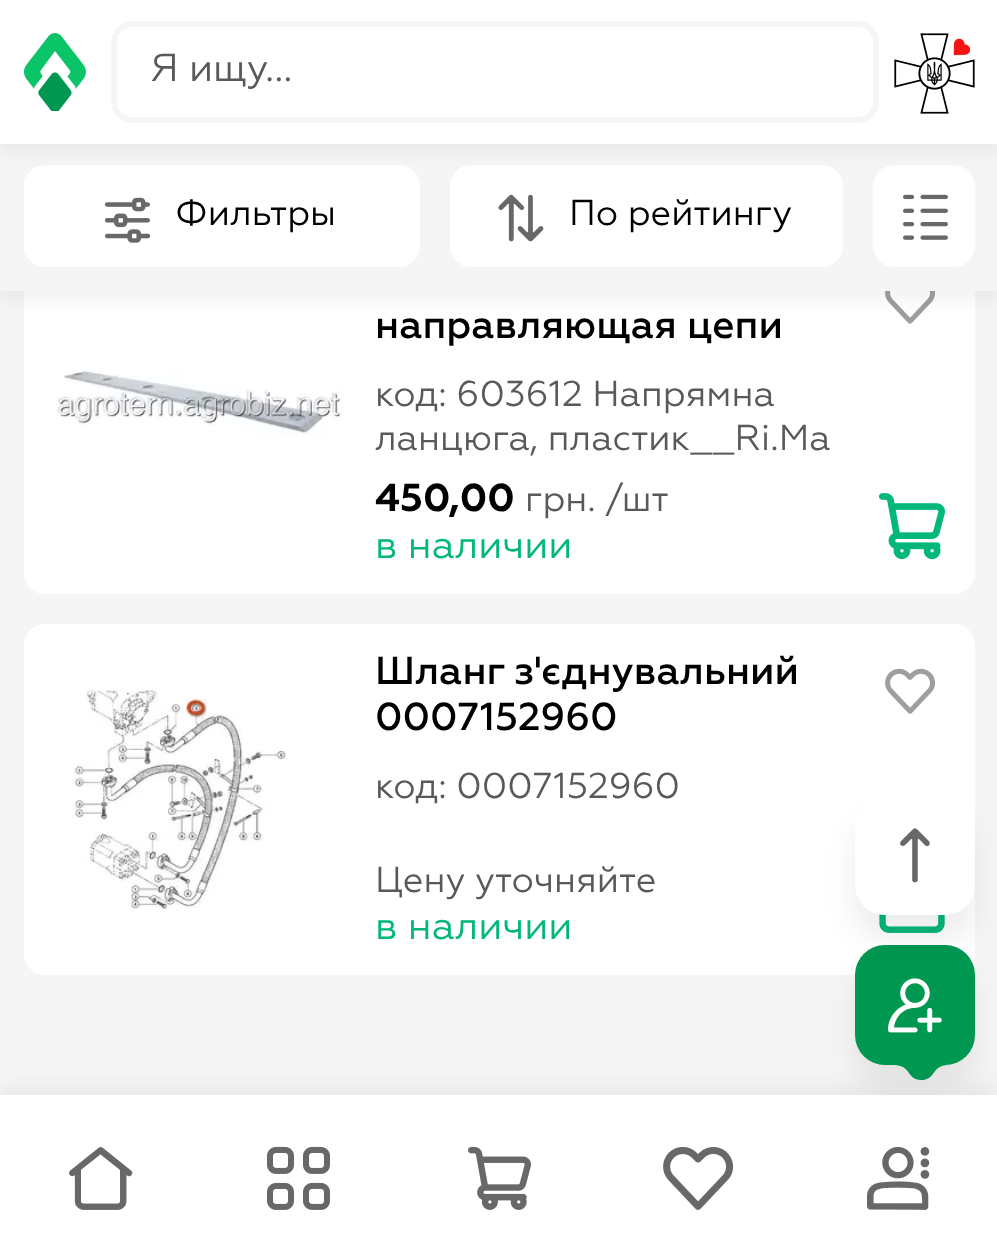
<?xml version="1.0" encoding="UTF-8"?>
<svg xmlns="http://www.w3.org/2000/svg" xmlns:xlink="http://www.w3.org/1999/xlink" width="997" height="1255">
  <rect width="100%" height="100%" fill="#f5f5f5" />
  <rect x="24" y="231" width="951" height="363" rx="21" fill="#ffffff" />
  <image x="885" y="291" width="50" height="33" xlink:href="image6.png" />
  <rect y="150" width="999" height="150" fill="#000000" fill-opacity="0.05" filter="blur(9px)" />
  <rect y="144" width="997" height="147" fill="#f5f5f5" />
  <rect x="24" y="165" width="396" height="102" rx="21" fill="#ffffff" />
  <rect x="450" y="165" width="393" height="102" rx="21" fill="#ffffff" />
  <rect x="873" y="165" width="102" height="102" rx="21" fill="#ffffff" />
  <rect y="-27" width="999" height="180" fill="#000000" fill-opacity="0.05" filter="blur(9px)" />
  <rect width="997" height="144" fill="#ffffff" />
  <image x="24" y="33" width="62" height="78" xlink:href="image1.png" />
  <rect x="114" y="24" width="762" height="96" rx="18" fill="none" stroke="#f5f5f5" stroke-width="6" />
  <image x="894" y="33" width="81" height="81" xlink:href="image2.png" />
  <image x="104" y="197" width="47" height="46" xlink:href="image3.png" />
  <image x="498" y="194" width="46" height="48" xlink:href="image4.png" />
  <image x="903" y="194" width="45" height="46" xlink:href="image5.png" />
  <image x="57" y="370" width="285" height="66" xlink:href="image7.png" />
  <image x="879" y="493" width="66" height="67" xlink:href="image8.png" />
  <rect x="24" y="624" width="951" height="351" rx="21" fill="#ffffff" />
  <image x="72" y="690" width="215" height="219" xlink:href="image9.png" />
  <image x="885" y="668" width="50" height="46" xlink:href="image10.png" />
  <image x="879" y="914" width="66" height="19" xlink:href="image11.png" />
  <rect x="855" y="969" width="120" height="120" rx="30" fill="#000000" fill-opacity="0.07" filter="blur(15px)" />
  <rect x="855" y="945" width="120" height="120" rx="30" fill="#009751" />
  <image x="888" y="978" width="54" height="55" xlink:href="image13.png" />
  <rect x="855" y="819" width="120" height="120" rx="30" fill="#000000" fill-opacity="0.07" filter="blur(15px)" />
  <rect x="855" y="795" width="120" height="120" rx="30" fill="#ffffff" />
  <image x="900" y="828" width="30" height="55" xlink:href="image12.png" />
  <path d="M 894 1065 c 17 0 13 15 27 15 c 11 0 11 -7 17 -12 c 3 -2 6 -3 10 -3 z" fill="#009751" />
  <rect y="1086" width="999" height="162" fill="#000000" fill-opacity="0.05" filter="blur(9px)" />
  <rect y="1095" width="997" height="160" fill="#ffffff" />
  <image x="69" y="1147" width="64" height="63" xlink:href="image14.png" />
  <image x="267" y="1146" width="63" height="64" xlink:href="image15.png" />
  <image x="468" y="1146" width="63" height="64" xlink:href="image16.png" />
  <image x="663" y="1146" width="71" height="64" xlink:href="image17.png" />
  <image x="867" y="1146" width="63" height="64" xlink:href="image18.png" />
  <text x="150" y="81" style="font-family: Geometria; font-size: 39px; fill: #595959">Я ищу...</text>
  <text x="175" y="225" style="font-family: Geometria; font-size: 36px; fill: #000000">Фильтры</text>
  <text x="569" y="225" style="font-family: Geometria; font-size: 36px; fill: #000000">По рейтингу</text>
  <text x="375" y="338" style="font-family: Geometria; font-size: 39px; font-weight: 500; fill: #000000">направляющая цепи</text>
  <text x="375" y="406" style="font-family: Geometria; font-size: 36px; fill: #595959">код: 603612 Напрямна</text>
  <text x="375" y="450" style="font-family: Geometria; font-size: 36px; fill: #595959">ланцюга, пластик__Ri.Ma</text>
  <text x="375" y="511" style="font-family: Geometria; font-size: 39px; font-weight: bold; fill: #000000">450,00</text>
  <text x="525" y="511" style="font-family: Geometria; font-size: 36px; fill: #595959">грн. /шт</text>
  <text x="375" y="558" style="font-family: Geometria; font-size: 39px; fill: #03b77c">в наличии</text>
  <text x="375" y="684" style="font-family: Geometria; font-size: 39px; font-weight: 500; fill: #000000">Шланг з'єднувальний</text>
  <text x="375" y="730" style="font-family: Geometria; font-size: 39px; font-weight: 500; fill: #000000">0007152960</text>
  <text x="375" y="798" style="font-family: Geometria; font-size: 36px; fill: #595959">код: 0007152960</text>
  <text x="375" y="892" style="font-family: Geometria; font-size: 36px; fill: #595959">Цену уточняйте</text>
  <text x="375" y="939" style="font-family: Geometria; font-size: 39px; fill: #03b77c">в наличии</text>
</svg>
